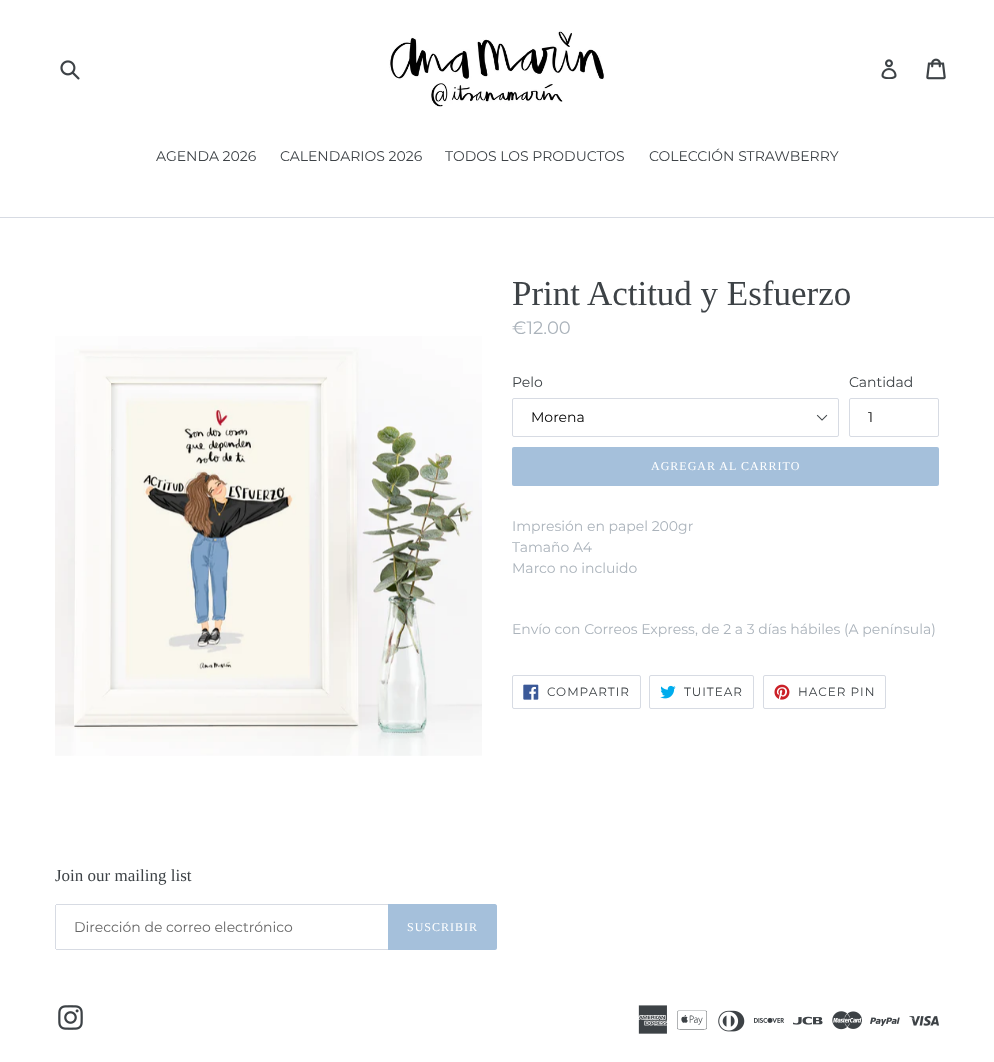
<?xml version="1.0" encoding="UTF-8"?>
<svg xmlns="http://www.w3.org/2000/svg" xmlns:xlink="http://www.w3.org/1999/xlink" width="994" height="1062">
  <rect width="100%" height="100%" fill="#ffffff" />
  <image x="60" y="60" width="20" height="20" xlink:href="image1.png" />
  <image x="389" y="30" width="216" height="77" xlink:href="image2.png" />
  <image x="881" y="59" width="16" height="20" xlink:href="image3.png" />
  <image x="926" y="58" width="20" height="22" xlink:href="image4.png" />
  <rect y="217" width="994" height="1" fill="#d7dbe3" />
  <image x="55" y="336" width="427" height="420" xlink:href="image5.png" />
  <image x="816" y="414" width="12" height="7" xlink:href="image6.png" />
  <rect x="512.5" y="398.5" width="326" height="38" rx="1.5" fill="none" stroke="#d7dbe3" />
  <rect x="849.5" y="398.5" width="89" height="38" rx="1.5" fill="none" stroke="#d7dbe3" />
  <rect x="512" y="447" width="427" height="39" rx="2" fill="#a5c0db" />
  <rect x="512.5" y="675.5" width="128" height="33" rx="1.5" fill="none" stroke="#d7dbe3" />
  <image x="523" y="684" width="16" height="16" xlink:href="image7.png" />
  <rect x="649.5" y="675.5" width="104" height="33" rx="1.5" fill="none" stroke="#d7dbe3" />
  <image x="660" y="685" width="16" height="14" xlink:href="image8.png" />
  <rect x="763.5" y="675.5" width="122" height="33" rx="1.5" fill="none" stroke="#d7dbe3" />
  <image x="774" y="684" width="16" height="16" xlink:href="image9.png" />
  <rect x="56" y="904" width="332" height="1" fill="#d7dbe3" />
  <rect x="56" y="949" width="332" height="1" fill="#d7dbe3" />
  <rect x="55" y="905" width="1" height="44" fill="#d7dbe3" />
  <path d="M 388 904 h 107 c 1 0 2 1 2 2 v 42 c 0 1 -1 2 -2 2 h -107 z" fill="#a5c0db" />
  <image x="58" y="1005" width="25" height="25" xlink:href="image10.png" />
  <image x="638" y="1005" width="30" height="29" xlink:href="image11.png" />
  <image x="677" y="1010" width="30" height="20" xlink:href="image12.png" />
  <image x="718" y="1010" width="27" height="22" xlink:href="image13.png" />
  <image x="754" y="1017" width="30" height="6" xlink:href="image14.png" />
  <image x="793" y="1016" width="30" height="9" xlink:href="image15.png" />
  <image x="832" y="1011" width="30" height="19" xlink:href="image16.png" />
  <image x="870" y="1017" width="30" height="9" xlink:href="image17.png" />
  <image x="909" y="1016" width="30" height="10" xlink:href="image18.png" />
  <text x="156" y="161" style="font-family: Montserrat; font-size: 14px; fill: #3d4246">AGENDA 2026</text>
  <text x="280" y="161" style="font-family: Montserrat; font-size: 14px; fill: #3d4246">CALENDARIOS 2026</text>
  <text x="445" y="161" style="font-family: Montserrat; font-size: 14px; fill: #3d4246">TODOS LOS PRODUCTOS</text>
  <text x="649" y="161" style="font-family: Montserrat; font-size: 14px; fill: #3d4246">COLECCIÓN STRAWBERRY</text>
  <text x="512" y="305" style="font-family: Liberation Serif; font-size: 35px; fill: #3d4246">Print Actitud y Esfuerzo</text>
  <text x="512" y="334" style="font-family: Montserrat; font-size: 18px; fill: #abb3bb">€12.00</text>
  <text x="512" y="387" style="font-family: Montserrat; font-size: 14px; fill: #3d4246">Pelo</text>
  <text x="531" y="422" style="font-family: Montserrat; font-size: 14px; fill: #000000">Morena</text>
  <text x="849" y="387" style="font-family: Montserrat; font-size: 14px; fill: #3d4246">Cantidad</text>
  <text x="868" y="422" style="font-family: Montserrat; font-size: 14px; fill: #000000">1</text>
  <text x="651" y="470" style="font-family: Liberation Serif; font-size: 12px; letter-spacing: 1px; fill: #ffffff">AGREGAR AL CARRITO</text>
  <text x="512" y="531" style="font-family: Montserrat; font-size: 14px; fill: #abb3bb">Impresión en papel 200gr</text>
  <text x="512" y="552" style="font-family: Montserrat; font-size: 14px; fill: #abb3bb">Tamaño A4</text>
  <text x="512" y="573" style="font-family: Montserrat; font-size: 14px; fill: #abb3bb">Marco no incluido</text>
  <text x="512" y="634" style="font-family: Montserrat; font-size: 14px; fill: #abb3bb">Envío con Correos Express, de 2 a 3 días hábiles (A península)</text>
  <text x="547" y="696" style="font-family: Montserrat; font-size: 12px; letter-spacing: 1px; fill: #3d4246">COMPARTIR</text>
  <text x="684" y="696" style="font-family: Montserrat; font-size: 12px; letter-spacing: 1px; fill: #3d4246">TUITEAR</text>
  <text x="798" y="696" style="font-family: Montserrat; font-size: 12px; letter-spacing: 1px; fill: #3d4246">HACER PIN</text>
  <text x="55" y="881" style="font-family: Liberation Serif; font-size: 17px; fill: #3d4246">Join our mailing list</text>
  <text x="74" y="932" style="font-family: Montserrat; font-size: 14px; fill: #666666">Dirección de correo electrónico</text>
  <text x="407" y="931" style="font-family: Liberation Serif; font-size: 12px; letter-spacing: 1px; fill: #ffffff">SUSCRIBIR</text>
</svg>
